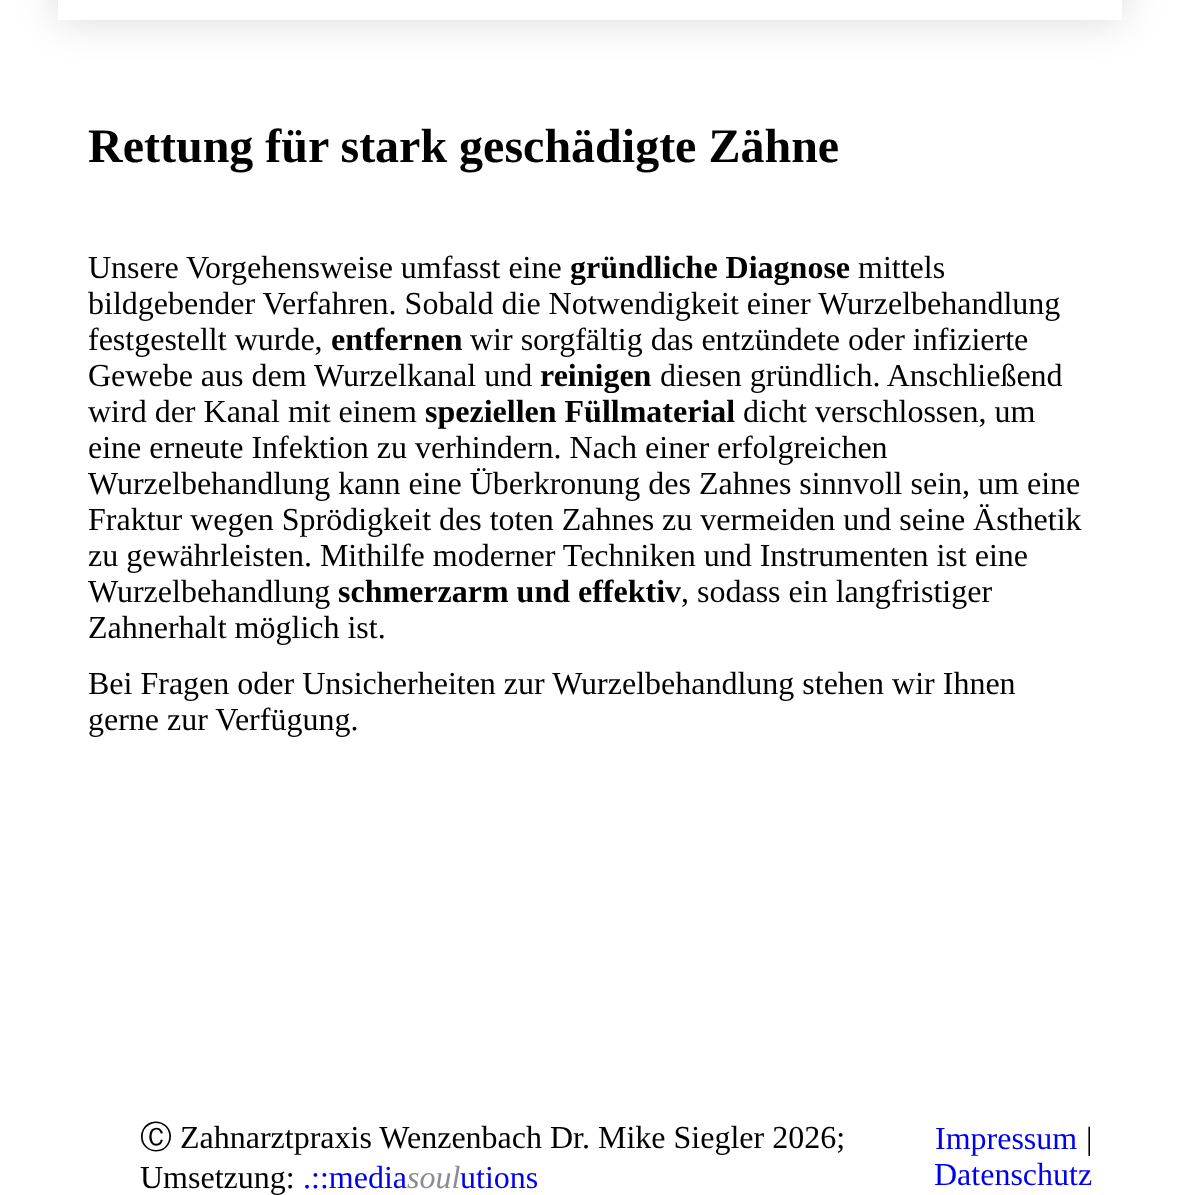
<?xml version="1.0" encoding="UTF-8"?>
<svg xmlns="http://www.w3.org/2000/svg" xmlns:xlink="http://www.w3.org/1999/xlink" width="1180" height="1195">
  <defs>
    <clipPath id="clip1"><path d="M 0 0 h 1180 v 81 h -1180 z m 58 -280 h 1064 v 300 h -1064 z" clip-rule="evenodd" /></clipPath>
  </defs>
  <rect width="100%" height="100%" fill="#ffffff" />
  <g clip-path="url(#clip1)">
    <rect x="58" y="-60" width="1064" height="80" fill="#000000" fill-opacity="0.15" filter="blur(20px)" />
  </g>
  <text x="88" y="162" style="font-family: Liberation Serif; font-size: 48px; font-weight: bold; fill: #000000">Rettung für stark geschädigte Zähne</text>
  <text x="88" y="278" style="font-family: Liberation Serif; font-size: 32px; fill: #000000">Unsere Vorgehensweise umfasst eine</text>
  <text x="570" y="278" style="font-family: Liberation Serif; font-size: 32px; font-weight: bold; fill: #000000">gründliche Diagnose</text>
  <text x="858" y="278" style="font-family: Liberation Serif; font-size: 32px; fill: #000000">mittels</text>
  <text x="88" y="314" style="font-family: Liberation Serif; font-size: 32px; fill: #000000">bildgebender Verfahren. Sobald die Notwendigkeit einer Wurzelbehandlung</text>
  <text x="88" y="350" style="font-family: Liberation Serif; font-size: 32px; fill: #000000">festgestellt wurde,</text>
  <text x="331" y="350" style="font-family: Liberation Serif; font-size: 32px; font-weight: bold; fill: #000000">entfernen</text>
  <text x="470" y="350" style="font-family: Liberation Serif; font-size: 32px; fill: #000000">wir sorgfältig das entzündete oder infizierte</text>
  <text x="88" y="386" style="font-family: Liberation Serif; font-size: 32px; fill: #000000">Gewebe aus dem Wurzelkanal und</text>
  <text x="540" y="386" style="font-family: Liberation Serif; font-size: 32px; font-weight: bold; fill: #000000">reinigen</text>
  <text x="660" y="386" style="font-family: Liberation Serif; font-size: 32px; fill: #000000">diesen gründlich. Anschließend</text>
  <text x="88" y="422" style="font-family: Liberation Serif; font-size: 32px; fill: #000000">wird der Kanal mit einem</text>
  <text x="425" y="422" style="font-family: Liberation Serif; font-size: 32px; font-weight: bold; fill: #000000">speziellen Füllmaterial</text>
  <text x="743" y="422" style="font-family: Liberation Serif; font-size: 32px; fill: #000000">dicht verschlossen, um</text>
  <text x="88" y="458" style="font-family: Liberation Serif; font-size: 32px; fill: #000000">eine erneute Infektion zu verhindern. Nach einer erfolgreichen</text>
  <text x="88" y="494" style="font-family: Liberation Serif; font-size: 32px; fill: #000000">Wurzelbehandlung kann eine Überkronung des Zahnes sinnvoll sein, um eine</text>
  <text x="88" y="530" style="font-family: Liberation Serif; font-size: 32px; fill: #000000">Fraktur wegen Sprödigkeit des toten Zahnes zu vermeiden und seine Ästhetik</text>
  <text x="88" y="566" style="font-family: Liberation Serif; font-size: 32px; fill: #000000">zu gewährleisten. Mithilfe moderner Techniken und Instrumenten ist eine</text>
  <text x="88" y="602" style="font-family: Liberation Serif; font-size: 32px; fill: #000000">Wurzelbehandlung</text>
  <text x="338" y="602" style="font-family: Liberation Serif; font-size: 32px; font-weight: bold; fill: #000000">schmerzarm und effektiv</text>
  <text x="681" y="602" style="font-family: Liberation Serif; font-size: 32px; fill: #000000">, sodass ein langfristiger</text>
  <text x="88" y="638" style="font-family: Liberation Serif; font-size: 32px; fill: #000000">Zahnerhalt möglich ist.</text>
  <text x="88" y="694" style="font-family: Liberation Serif; font-size: 32px; fill: #000000">Bei Fragen oder Unsicherheiten zur Wurzelbehandlung stehen wir Ihnen</text>
  <text x="88" y="730" style="font-family: Liberation Serif; font-size: 32px; fill: #000000">gerne zur Verfügung.</text>
  <text x="140" y="1148" style="font-family: WenQuanYi Zen Hei; font-size: 32px; font-weight: 500; fill: #000000">Ⓒ</text>
  <text x="180" y="1148" style="font-family: Liberation Serif; font-size: 32px; fill: #000000">Zahnarztpraxis Wenzenbach Dr. Mike Siegler 2026;</text>
  <text x="140" y="1188" style="font-family: Liberation Serif; font-size: 32px; fill: #000000">Umsetzung:</text>
  <text x="303" y="1188" style="font-family: Liberation Serif; font-size: 32px; fill: #0000ee">.::media</text>
  <text x="407" y="1188" style="font-family: Liberation Serif; font-size: 32px; font-style: italic; fill: #8b8d94">soul</text>
  <text x="460" y="1188" style="font-family: Liberation Serif; font-size: 32px; fill: #0000ee">utions</text>
  <text x="935" y="1149" style="font-family: Liberation Serif; font-size: 32px; fill: #0000ee">Impressum</text>
  <text x="1086" y="1149" style="font-family: Liberation Serif; font-size: 32px; fill: #000000">|</text>
  <text x="934" y="1185" style="font-family: Liberation Serif; font-size: 32px; fill: #0000ee">Datenschutz</text>
</svg>
